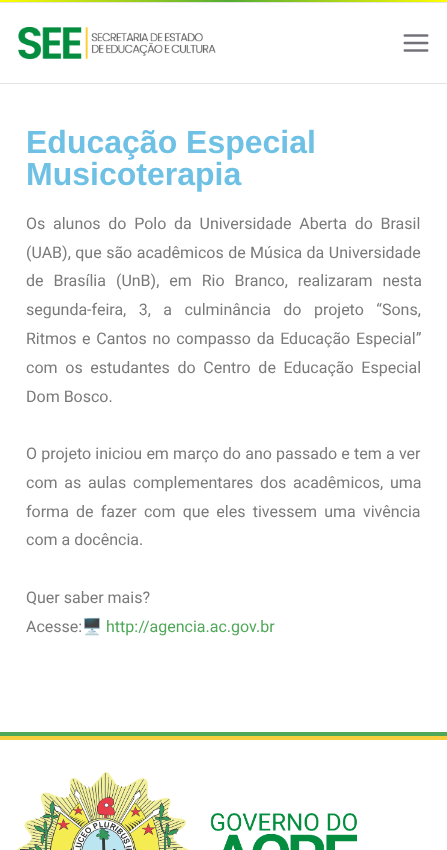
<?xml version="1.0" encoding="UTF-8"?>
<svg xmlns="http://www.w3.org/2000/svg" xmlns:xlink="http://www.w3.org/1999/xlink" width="447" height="850">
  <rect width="100%" height="100%" fill="#e4e4e7" />
  <image x="0" y="0" width="447" height="2" xlink:href="image1.png" />
  <rect y="3" width="447" height="80" fill="#ffffff" />
  <image x="18" y="27" width="198" height="32" xlink:href="image2.png" />
  <image x="403" y="34" width="26" height="18" xlink:href="image3.png" />
  <rect y="84" width="447" height="766" fill="#ffffff" />
  <rect y="732" width="447" height="4" fill="#4fa858" />
  <rect y="736" width="447" height="4" fill="#f9ce3c" />
  <image x="17" y="772" width="340" height="78" xlink:href="image4.png" />
  <text x="26" y="153" style="font-family: Liberation Sans; font-size: 32px; font-weight: bold; fill: #6ec1e4">Educação Especial</text>
  <text x="26" y="185" style="font-family: Liberation Sans; font-size: 32px; font-weight: bold; fill: #6ec1e4">Musicoterapia</text>
  <text x="26" y="229" word-spacing="3.75" style="font-family: Roboto; font-size: 16px; fill: #7a7a7a">Os alunos do Polo da Universidade Aberta do Brasil</text>
  <text x="26" y="258" word-spacing="0.5" style="font-family: Roboto; font-size: 16px; fill: #7a7a7a">(UAB), que são acadêmicos de Música da Universidade</text>
  <text x="26" y="286" word-spacing="6" style="font-family: Roboto; font-size: 16px; fill: #7a7a7a">de Brasília (UnB), em Rio Branco, realizaram nesta</text>
  <text x="26" y="315" word-spacing="8.5" style="font-family: Roboto; font-size: 16px; fill: #7a7a7a">segunda-feira, 3, a culminância do projeto “Sons,</text>
  <text x="26" y="344" word-spacing="1.75" style="font-family: Roboto; font-size: 16px; fill: #7a7a7a">Ritmos e Cantos no compasso da Educação Especial”</text>
  <text x="26" y="373" word-spacing="3.75" style="font-family: Roboto; font-size: 16px; fill: #7a7a7a">com os estudantes do Centro de Educação Especial</text>
  <text x="26" y="402" style="font-family: Roboto; font-size: 16px; fill: #7a7a7a">Dom Bosco.</text>
  <text x="26" y="459" word-spacing="0.25" style="font-family: Roboto; font-size: 16px; fill: #7a7a7a">O projeto iniciou em março do ano passado e tem a ver</text>
  <text x="26" y="488" word-spacing="2.75" style="font-family: Roboto; font-size: 16px; fill: #7a7a7a">com as aulas complementares dos acadêmicos, uma</text>
  <text x="26" y="517" word-spacing="3.25" style="font-family: Roboto; font-size: 16px; fill: #7a7a7a">forma de fazer com que eles tivessem uma vivência</text>
  <text x="26" y="545" style="font-family: Roboto; font-size: 16px; fill: #7a7a7a">com a docência.</text>
  <text x="26" y="603" style="font-family: Roboto; font-size: 16px; fill: #7a7a7a">Quer saber mais?</text>
  <text x="26" y="632" style="font-family: Roboto; font-size: 16px; fill: #7a7a7a">Acesse:</text>
  <text x="82" y="632" style="font-family: Noto Color Emoji; font-size: 16px; fill: #7a7a7a">🖥️</text>
  <text x="106" y="632" style="font-family: Roboto; font-size: 16px; fill: #4fa858">http://agencia.ac.gov.br</text>
</svg>
